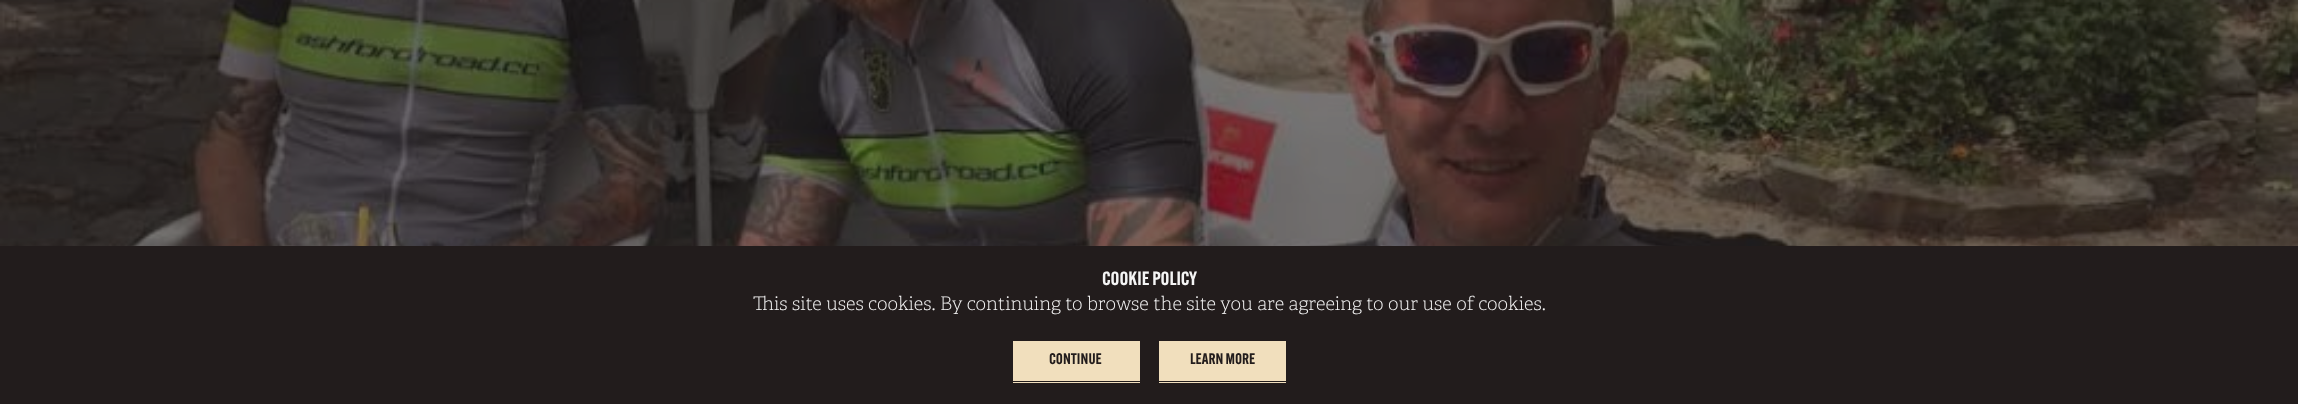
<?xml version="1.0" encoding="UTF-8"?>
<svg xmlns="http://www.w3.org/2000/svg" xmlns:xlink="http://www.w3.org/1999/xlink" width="2298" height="404">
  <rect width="100%" height="100%" fill="#ffffff" />
  <image x="0" y="0" width="2298" height="246" xlink:href="image1.png" />
  <rect y="246" width="2298" height="158" fill="#221c1c" />
  <rect x="1013" y="341" width="127" height="42" fill="#f1dfbd" />
  <rect x="1013" y="381" width="127" height="1" fill="#221c1c" />
  <rect x="1159" y="341" width="127" height="42" fill="#f1dfbd" />
  <rect x="1159" y="381" width="127" height="1" fill="#221c1c" />
  <text x="1102" y="285" style="font-family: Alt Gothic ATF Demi; font-size: 18.75px; font-weight: 600; fill: #f5f5f5">COOKIE POLICY</text>
  <text x="753" y="310" style="font-family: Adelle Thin; font-size: 18.75px; font-weight: 100; fill: #f5f5f5">This site uses cookies. By continuing to browse the site you are agreeing to our use of cookies.</text>
  <text x="1049" y="364" style="font-family: Alt Gothic ATF Demi; font-size: 15px; font-weight: 600; fill: #221c1c">CONTINUE</text>
  <text x="1190" y="364" style="font-family: Alt Gothic ATF Demi; font-size: 15px; font-weight: 600; fill: #221c1c">LEARN MORE</text>
</svg>
